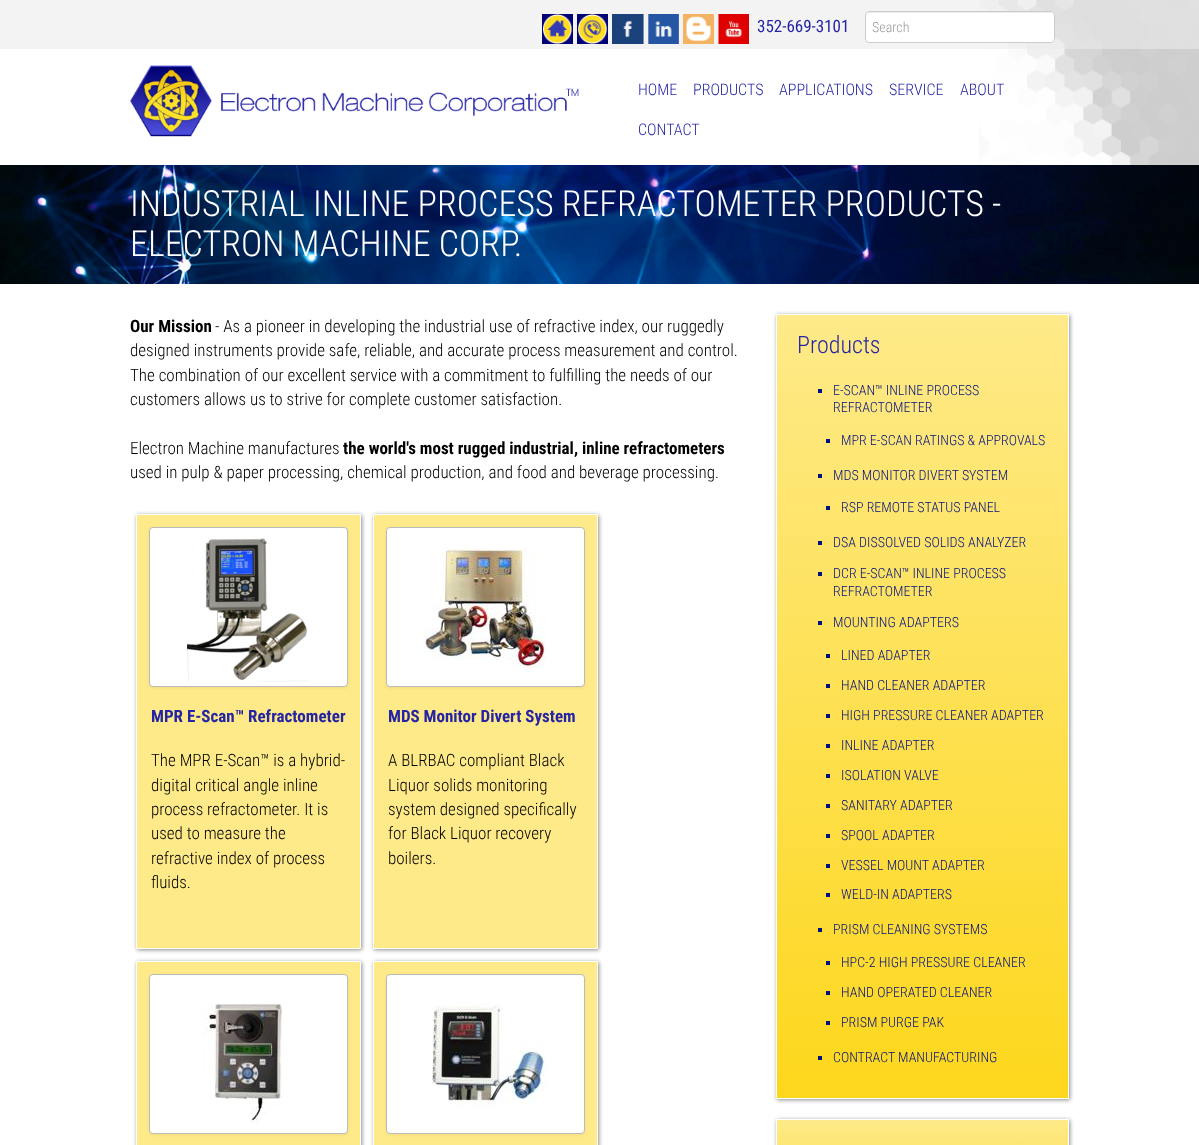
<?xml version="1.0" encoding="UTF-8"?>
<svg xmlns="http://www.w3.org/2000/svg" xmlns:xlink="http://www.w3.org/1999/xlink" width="1199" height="1145">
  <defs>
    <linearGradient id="g1" gradientUnits="userSpaceOnUse" x1="923" y1="1098" x2="923" y2="315"><stop offset="0" stop-color="#fdd71c" /><stop offset="1" stop-color="#feea89" /></linearGradient>
    <linearGradient id="g2" gradientUnits="userSpaceOnUse" x1="923" y1="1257" x2="923" y2="1120"><stop offset="0" stop-color="#fdd71c" /><stop offset="1" stop-color="#feea89" /></linearGradient>
  </defs>
  <rect width="100%" height="100%" fill="#ffffff" />
  <image x="979" y="0" width="220" height="165" xlink:href="image1.png" />
  <rect width="1199" height="49" fill="#ebebeb" fill-opacity="0.59" />
  <image x="542" y="14" width="31" height="30" xlink:href="image2.png" />
  <image x="577" y="14" width="31" height="30" xlink:href="image3.png" />
  <image x="612" y="14" width="32" height="30" xlink:href="image4.png" />
  <image x="648" y="14" width="31" height="30" xlink:href="image5.png" />
  <image x="683" y="14" width="31" height="30" xlink:href="image6.png" />
  <image x="718" y="14" width="31" height="30" xlink:href="image7.png" />
  <rect x="865" y="11" width="190" height="32" rx="4" fill="#ffffff" />
  <path d="M 869 13 h 182 c 2 0 3 1 3 3 c 0 -2 -1 -4 -3 -4 h -182 c -2 0 -3 2 -3 4 c 0 -2 1 -3 3 -3 z" fill="#ececec" />
  <rect x="865.5" y="11.5" width="189" height="31" rx="3.5" fill="none" stroke="#cccccc" />
  <image x="130" y="65" width="449" height="72" xlink:href="image8.png" />
  <image x="0" y="165" width="1199" height="119" xlink:href="image9.png" />
  <rect x="137" y="515" width="225" height="435" rx="1" fill="#000000" fill-opacity="0.45" filter="blur(2px)" />
  <rect x="136.5" y="514.5" width="224" height="434" rx="0.5" fill="#feea89" stroke="#ffffff" />
  <rect x="149" y="528" width="199" height="160" rx="4" fill="#000000" fill-opacity="0.06" filter="blur(1.5px)" />
  <rect x="149.5" y="527.5" width="198" height="159" rx="3.5" fill="#ffffff" stroke="#bbbbbb" />
  <image x="187" y="538" width="123" height="144" xlink:href="image10.png" />
  <rect x="374" y="515" width="225" height="435" rx="1" fill="#000000" fill-opacity="0.45" filter="blur(2px)" />
  <rect x="373.5" y="514.5" width="224" height="434" rx="0.5" fill="#feea89" stroke="#ffffff" />
  <rect x="386" y="528" width="199" height="160" rx="4" fill="#000000" fill-opacity="0.06" filter="blur(1.5px)" />
  <rect x="386.5" y="527.5" width="198" height="159" rx="3.5" fill="#ffffff" stroke="#bbbbbb" />
  <image x="424" y="547" width="123" height="125" xlink:href="image11.png" />
  <rect x="137" y="962" width="225" height="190" rx="1" fill="#000000" fill-opacity="0.45" filter="blur(2px)" />
  <rect x="136.5" y="961.5" width="224" height="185" rx="0.5" fill="#feea89" stroke="#ffffff" />
  <rect x="149" y="975" width="199" height="160" rx="4" fill="#000000" fill-opacity="0.06" filter="blur(1.5px)" />
  <rect x="149.5" y="974.5" width="198" height="159" rx="3.5" fill="#ffffff" stroke="#bbbbbb" />
  <image x="203" y="1003" width="80" height="120" xlink:href="image12.png" />
  <rect x="374" y="962" width="225" height="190" rx="1" fill="#000000" fill-opacity="0.45" filter="blur(2px)" />
  <rect x="373.5" y="961.5" width="224" height="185" rx="0.5" fill="#feea89" stroke="#ffffff" />
  <rect x="386" y="975" width="199" height="160" rx="4" fill="#000000" fill-opacity="0.06" filter="blur(1.5px)" />
  <rect x="386.5" y="974.5" width="198" height="159" rx="3.5" fill="#ffffff" stroke="#bbbbbb" />
  <image x="432" y="1003" width="115" height="104" xlink:href="image13.png" />
  <rect x="777" y="315" width="293" height="785" fill="#000000" fill-opacity="0.45" filter="blur(2px)" />
  <rect x="777" y="315" width="291" height="783" fill="url(#g1)" />
  <rect x="776.5" y="314.5" width="292" height="784" fill="none" stroke="#ffffff" />
  <rect x="818" y="389" width="4" height="4" fill="#000f7e" />
  <rect x="826" y="439" width="4" height="4" fill="#000f7e" />
  <rect x="818" y="474" width="4" height="4" fill="#000f7e" />
  <rect x="826" y="506" width="4" height="4" fill="#000f7e" />
  <rect x="818" y="541" width="4" height="4" fill="#000f7e" />
  <rect x="818" y="572" width="4" height="4" fill="#000f7e" />
  <rect x="818" y="621" width="4" height="4" fill="#000f7e" />
  <rect x="826" y="654" width="4" height="4" fill="#000f7e" />
  <rect x="826" y="684" width="4" height="4" fill="#000f7e" />
  <rect x="826" y="714" width="4" height="4" fill="#000f7e" />
  <rect x="826" y="744" width="4" height="4" fill="#000f7e" />
  <rect x="826" y="774" width="4" height="4" fill="#000f7e" />
  <rect x="826" y="804" width="4" height="4" fill="#000f7e" />
  <rect x="826" y="834" width="4" height="4" fill="#000f7e" />
  <rect x="826" y="864" width="4" height="4" fill="#000f7e" />
  <rect x="826" y="893" width="4" height="4" fill="#000f7e" />
  <rect x="818" y="928" width="4" height="4" fill="#000f7e" />
  <rect x="826" y="961" width="4" height="4" fill="#000f7e" />
  <rect x="826" y="991" width="4" height="4" fill="#000f7e" />
  <rect x="826" y="1021" width="4" height="4" fill="#000f7e" />
  <rect x="818" y="1056" width="4" height="4" fill="#000f7e" />
  <rect x="777" y="1120" width="293" height="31" fill="#000000" fill-opacity="0.45" filter="blur(2px)" />
  <rect x="777" y="1120" width="291" height="25" fill="url(#g2)" />
  <rect x="776.5" y="1119.5" width="292" height="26" fill="none" stroke="#ffffff" />
  <text x="757" y="32" style="font-family: Roboto Condensed; font-size: 17px; fill: #2524a4">352-669-3101</text>
  <text x="872" y="32" style="font-family: Roboto Condensed; font-size: 14px; font-weight: 300; fill: #999999">Search</text>
  <text x="638" y="95" style="font-family: Roboto Condensed; font-size: 16px; font-weight: 300; fill: #2524a4">HOME</text>
  <text x="693" y="95" style="font-family: Roboto Condensed; font-size: 16px; font-weight: 300; fill: #2524a4">PRODUCTS</text>
  <text x="779" y="95" style="font-family: Roboto Condensed; font-size: 16px; font-weight: 300; fill: #2524a4">APPLICATIONS</text>
  <text x="889" y="95" style="font-family: Roboto Condensed; font-size: 16px; font-weight: 300; fill: #2524a4">SERVICE</text>
  <text x="960" y="95" style="font-family: Roboto Condensed; font-size: 16px; font-weight: 300; fill: #2524a4">ABOUT</text>
  <text x="638" y="135" style="font-family: Roboto Condensed; font-size: 16px; font-weight: 300; fill: #2524a4">CONTACT</text>
  <text x="130" y="216" style="font-family: Roboto Condensed; font-size: 36px; font-weight: 300; fill: #ffffff">INDUSTRIAL INLINE PROCESS REFRACTOMETER PRODUCTS -</text>
  <text x="130" y="256" style="font-family: Roboto Condensed; font-size: 36px; font-weight: 300; fill: #ffffff">ELECTRON MACHINE CORP.</text>
  <text x="130" y="332" style="font-family: Roboto Condensed; font-size: 17px; font-weight: bold; fill: #000000">Our Mission</text>
  <text x="215" y="332" style="font-family: Roboto Condensed; font-size: 17px; font-weight: 300; fill: #000000">- As a pioneer in developing the industrial use of refractive index, our ruggedly</text>
  <text x="130" y="356" style="font-family: Roboto Condensed; font-size: 17px; font-weight: 300; fill: #000000">designed instruments provide safe, reliable, and accurate process measurement and control.</text>
  <text x="130" y="381" style="font-family: Roboto Condensed; font-size: 17px; font-weight: 300; fill: #000000">The combination of our excellent service with a commitment to fulfilling the needs of our</text>
  <text x="130" y="405" style="font-family: Roboto Condensed; font-size: 17px; font-weight: 300; fill: #000000">customers allows us to strive for complete customer satisfaction.</text>
  <text x="130" y="454" style="font-family: Roboto Condensed; font-size: 17px; font-weight: 300; fill: #000000">Electron Machine manufactures</text>
  <text x="343" y="454" style="font-family: Roboto Condensed; font-size: 17px; font-weight: bold; fill: #000000">the world's most rugged industrial, inline refractometers</text>
  <text x="130" y="478" style="font-family: Roboto Condensed; font-size: 17px; font-weight: 300; fill: #000000">used in pulp &amp; paper processing, chemical production, and food and beverage processing.</text>
  <text x="151" y="722" style="font-family: Roboto Condensed; font-size: 17px; font-weight: bold; fill: #2524a4">MPR E-Scan™ Refractometer</text>
  <text x="151" y="766" style="font-family: Roboto Condensed; font-size: 17px; font-weight: 300; fill: #000000">The MPR E-Scan™ is a hybrid-</text>
  <text x="151" y="791" style="font-family: Roboto Condensed; font-size: 17px; font-weight: 300; fill: #000000">digital critical angle inline</text>
  <text x="151" y="815" style="font-family: Roboto Condensed; font-size: 17px; font-weight: 300; fill: #000000">process refractometer. It is</text>
  <text x="151" y="839" style="font-family: Roboto Condensed; font-size: 17px; font-weight: 300; fill: #000000">used to measure the</text>
  <text x="151" y="864" style="font-family: Roboto Condensed; font-size: 17px; font-weight: 300; fill: #000000">refractive index of process</text>
  <text x="151" y="888" style="font-family: Roboto Condensed; font-size: 17px; font-weight: 300; fill: #000000">fluids.</text>
  <text x="388" y="722" style="font-family: Roboto Condensed; font-size: 17px; font-weight: bold; fill: #2524a4">MDS Monitor Divert System</text>
  <text x="388" y="766" style="font-family: Roboto Condensed; font-size: 17px; font-weight: 300; fill: #000000">A BLRBAC compliant Black</text>
  <text x="388" y="791" style="font-family: Roboto Condensed; font-size: 17px; font-weight: 300; fill: #000000">Liquor solids monitoring</text>
  <text x="388" y="815" style="font-family: Roboto Condensed; font-size: 17px; font-weight: 300; fill: #000000">system designed specifically</text>
  <text x="388" y="839" style="font-family: Roboto Condensed; font-size: 17px; font-weight: 300; fill: #000000">for Black Liquor recovery</text>
  <text x="388" y="864" style="font-family: Roboto Condensed; font-size: 17px; font-weight: 300; fill: #000000">boilers.</text>
  <text x="797" y="353" style="font-family: Roboto Condensed; font-size: 24px; font-weight: 300; fill: #2524a4">Products</text>
  <text x="833" y="395" style="font-family: Roboto Condensed; font-size: 14px; font-weight: 300; fill: #000f7e">E-SCAN™ INLINE PROCESS</text>
  <text x="833" y="412" style="font-family: Roboto Condensed; font-size: 14px; font-weight: 300; fill: #000f7e">REFRACTOMETER</text>
  <text x="841" y="445" style="font-family: Roboto Condensed; font-size: 14px; font-weight: 300; fill: #000f7e">MPR E-SCAN RATINGS &amp; APPROVALS</text>
  <text x="833" y="480" style="font-family: Roboto Condensed; font-size: 14px; font-weight: 300; fill: #000f7e">MDS MONITOR DIVERT SYSTEM</text>
  <text x="841" y="512" style="font-family: Roboto Condensed; font-size: 14px; font-weight: 300; fill: #000f7e">RSP REMOTE STATUS PANEL</text>
  <text x="833" y="547" style="font-family: Roboto Condensed; font-size: 14px; font-weight: 300; fill: #000f7e">DSA DISSOLVED SOLIDS ANALYZER</text>
  <text x="833" y="578" style="font-family: Roboto Condensed; font-size: 14px; font-weight: 300; fill: #000f7e">DCR E-SCAN™ INLINE PROCESS</text>
  <text x="833" y="596" style="font-family: Roboto Condensed; font-size: 14px; font-weight: 300; fill: #000f7e">REFRACTOMETER</text>
  <text x="833" y="627" style="font-family: Roboto Condensed; font-size: 14px; font-weight: 300; fill: #000f7e">MOUNTING ADAPTERS</text>
  <text x="841" y="660" style="font-family: Roboto Condensed; font-size: 14px; font-weight: 300; fill: #000f7e">LINED ADAPTER</text>
  <text x="841" y="690" style="font-family: Roboto Condensed; font-size: 14px; font-weight: 300; fill: #000f7e">HAND CLEANER ADAPTER</text>
  <text x="841" y="720" style="font-family: Roboto Condensed; font-size: 14px; font-weight: 300; fill: #000f7e">HIGH PRESSURE CLEANER ADAPTER</text>
  <text x="841" y="750" style="font-family: Roboto Condensed; font-size: 14px; font-weight: 300; fill: #000f7e">INLINE ADAPTER</text>
  <text x="841" y="780" style="font-family: Roboto Condensed; font-size: 14px; font-weight: 300; fill: #000f7e">ISOLATION VALVE</text>
  <text x="841" y="810" style="font-family: Roboto Condensed; font-size: 14px; font-weight: 300; fill: #000f7e">SANITARY ADAPTER</text>
  <text x="841" y="840" style="font-family: Roboto Condensed; font-size: 14px; font-weight: 300; fill: #000f7e">SPOOL ADAPTER</text>
  <text x="841" y="870" style="font-family: Roboto Condensed; font-size: 14px; font-weight: 300; fill: #000f7e">VESSEL MOUNT ADAPTER</text>
  <text x="841" y="899" style="font-family: Roboto Condensed; font-size: 14px; font-weight: 300; fill: #000f7e">WELD-IN ADAPTERS</text>
  <text x="833" y="934" style="font-family: Roboto Condensed; font-size: 14px; font-weight: 300; fill: #000f7e">PRISM CLEANING SYSTEMS</text>
  <text x="841" y="967" style="font-family: Roboto Condensed; font-size: 14px; font-weight: 300; fill: #000f7e">HPC-2 HIGH PRESSURE CLEANER</text>
  <text x="841" y="997" style="font-family: Roboto Condensed; font-size: 14px; font-weight: 300; fill: #000f7e">HAND OPERATED CLEANER</text>
  <text x="841" y="1027" style="font-family: Roboto Condensed; font-size: 14px; font-weight: 300; fill: #000f7e">PRISM PURGE PAK</text>
  <text x="833" y="1062" style="font-family: Roboto Condensed; font-size: 14px; font-weight: 300; fill: #000f7e">CONTRACT MANUFACTURING</text>
</svg>
